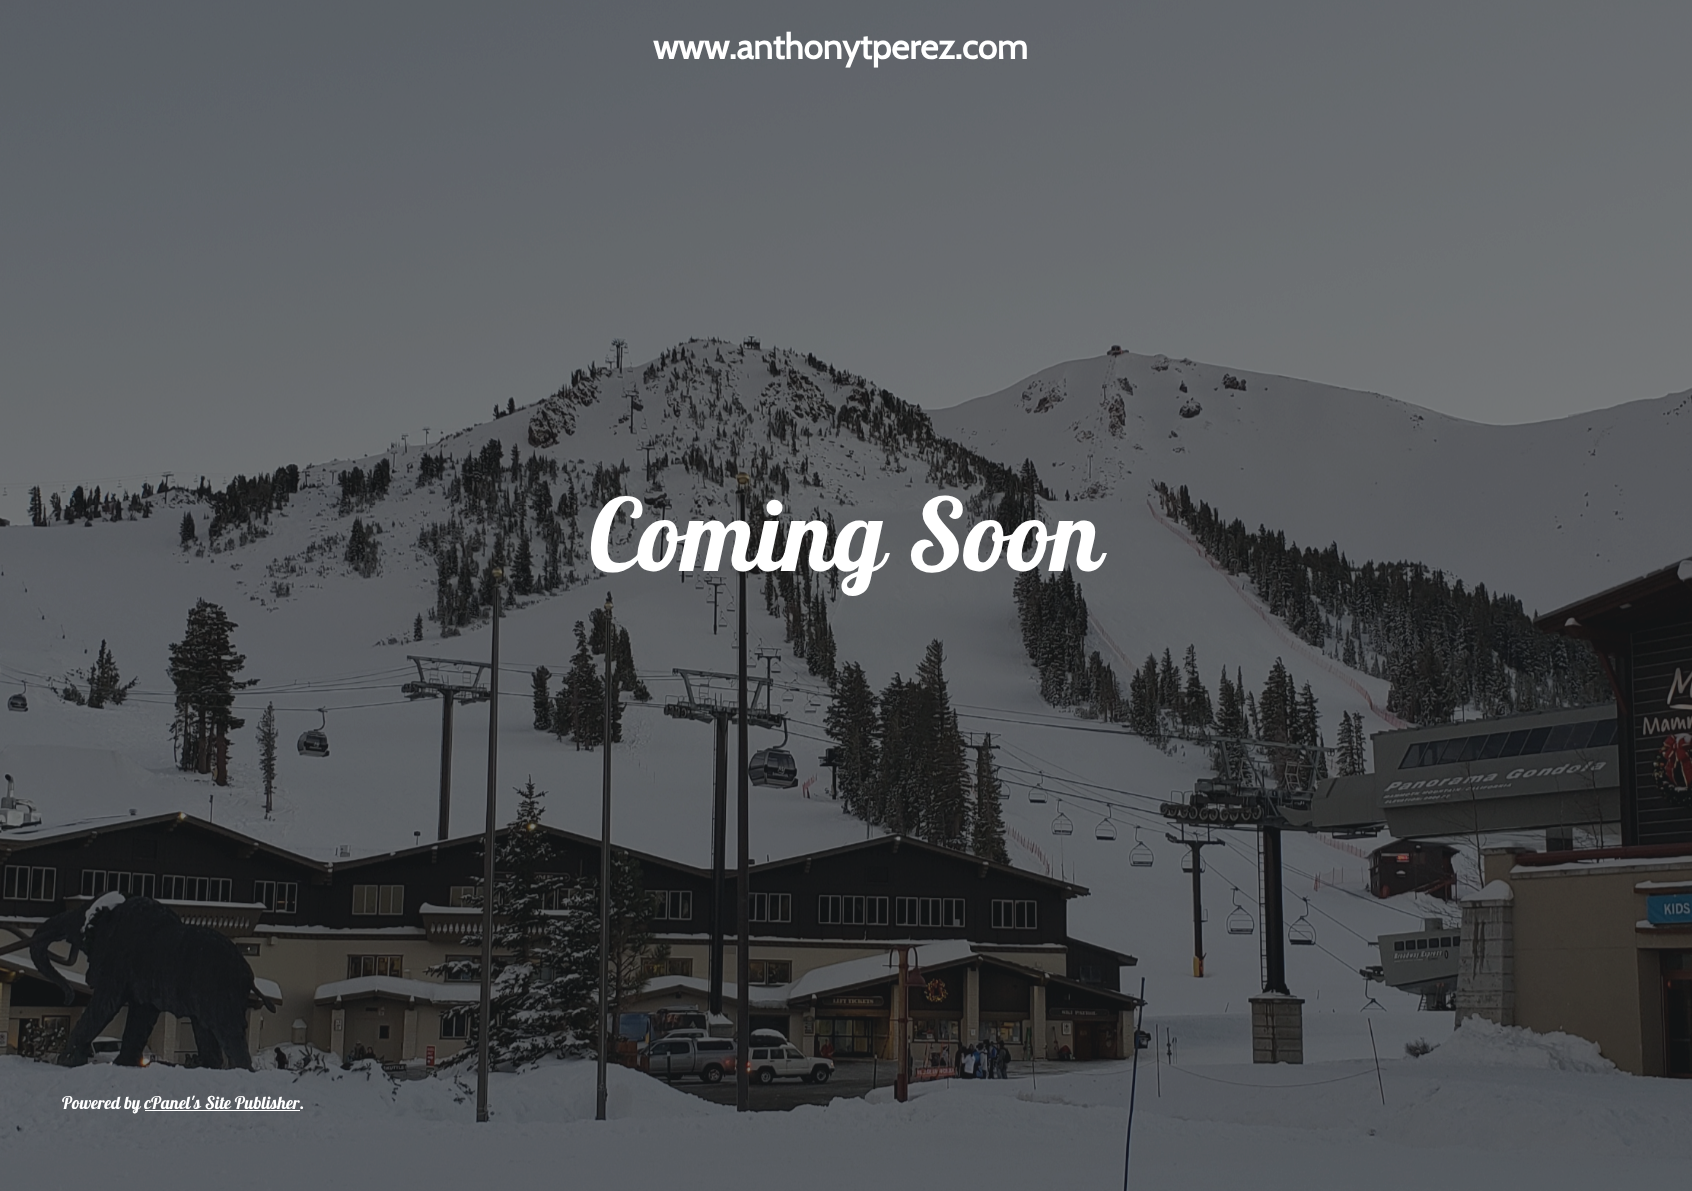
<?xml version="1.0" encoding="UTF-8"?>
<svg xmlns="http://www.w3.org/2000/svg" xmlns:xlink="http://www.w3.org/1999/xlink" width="1692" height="1191">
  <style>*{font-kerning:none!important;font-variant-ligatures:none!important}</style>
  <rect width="100%" height="100%" fill="#1a1e21" />
  <image x="0" y="0" width="1692" height="1191" xlink:href="image1.png" />
  <rect x="145" y="1110" width="155" height="1" fill="#ffffff" />
  <text x="653" y="59" style="font-family: Cabin; font-size: 35px; font-weight: bold; fill: #ffffff">www.anthonytperez.com</text>
  <text x="589" y="571" style="font-family: Lobster; font-size: 100px; fill: #ffffff">Coming Soon</text>
  <text x="62" y="1109" style="font-family: Lobster; font-size: 17.5px; fill: #ffffff">Powered by cPanel's</text>
  <text x="205" y="1109" style="font-family: Lobster; font-size: 17.5px; fill: #ffffff">Site Publisher.</text>
</svg>
